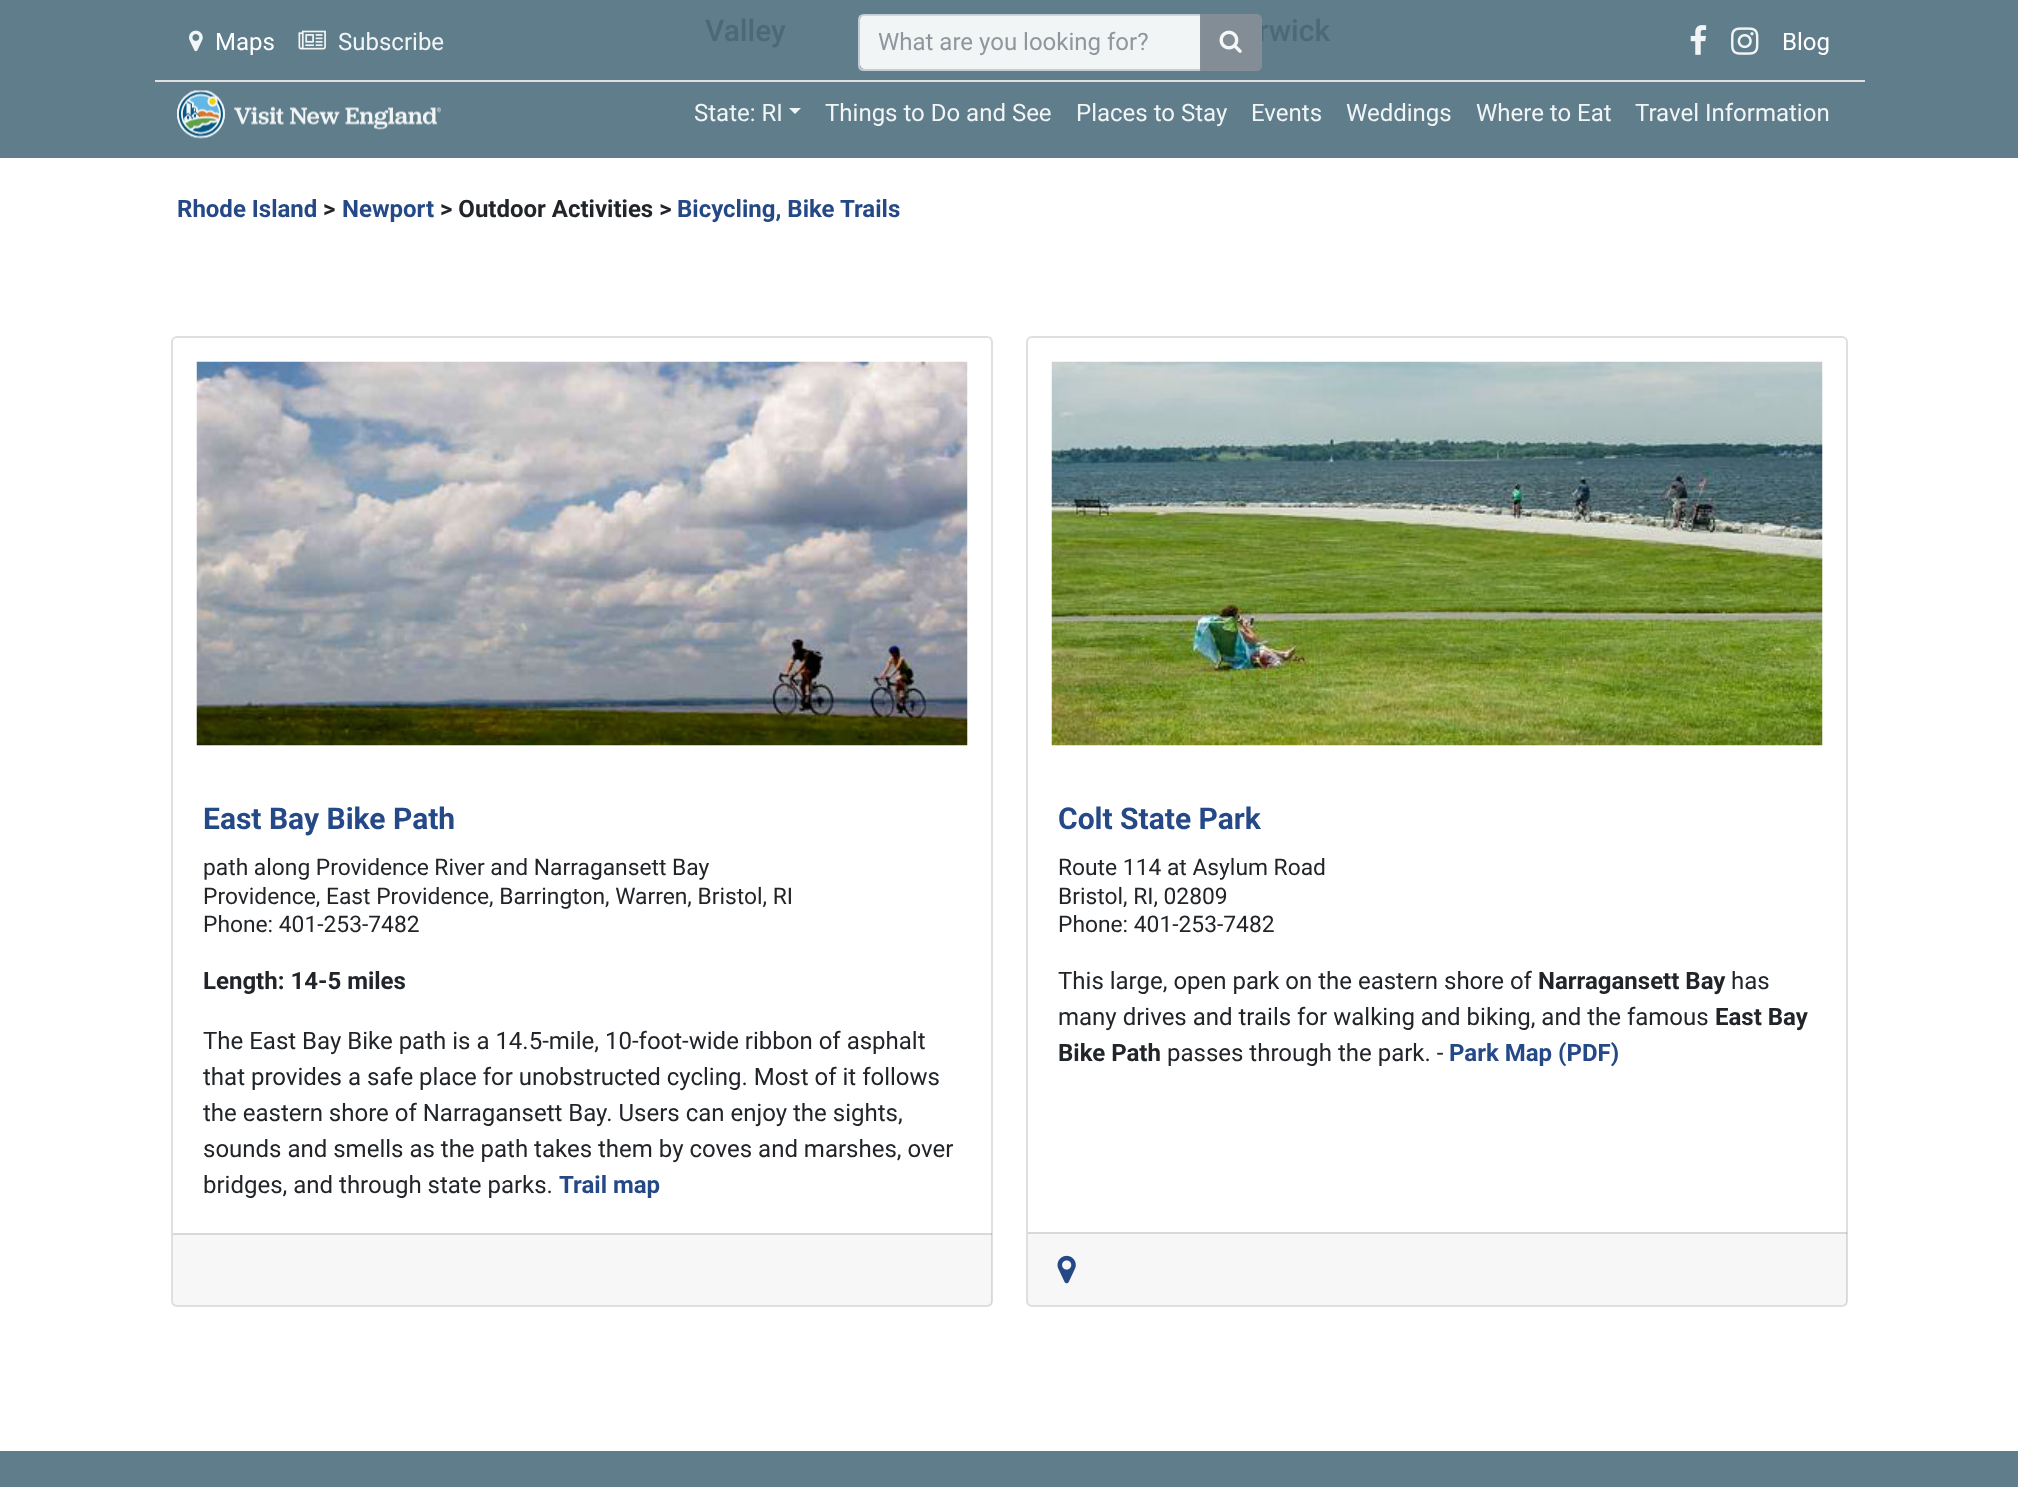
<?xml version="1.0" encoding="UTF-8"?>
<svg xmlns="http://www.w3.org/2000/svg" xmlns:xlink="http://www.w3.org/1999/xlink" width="2018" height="1487">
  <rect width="100%" height="100%" fill="#ffffff" />
  <rect width="2018" height="158" fill="#5f7d8b" />
  <rect x="155" y="80" width="1710" height="2" fill="#e0e0e0" />
  <image x="189" y="30" width="14" height="22" xlink:href="image1.png" />
  <image x="298" y="30" width="28" height="20" xlink:href="image2.png" />
  <path d="M 865 15 h 335 v 54 h -335 c -3 0 -5 -2 -5 -5 v -44 c 0 -3 2 -5 5 -5 z" fill="#f2f5f6" />
  <path d="M 864 15 h 337 v 55 h -337 c -3 0 -5 -2 -5 -5 v -45 c 0 -3 2 -5 5 -5 z" fill="none" stroke="#ced4da" stroke-opacity="0.92" stroke-width="2" />
  <image x="1690" y="25" width="17" height="30" xlink:href="image4.png" />
  <image x="1731" y="27" width="28" height="28" xlink:href="image5.png" />
  <image x="177" y="90" width="264" height="49" xlink:href="image6.png" />
  <path d="M 789 108 h 12 l -6 6 z" fill="#ffffff" fill-opacity="0.92" />
  <rect x="172" y="337" width="820" height="969" rx="5" fill="none" stroke="#dfdfdf" stroke-width="2" />
  <image x="196" y="361" width="772" height="385" xlink:href="image7.png" />
  <rect x="173" y="1233" width="819" height="72" fill="#000000" fill-opacity="0.03" />
  <rect x="173" y="1233" width="819" height="2" fill="#000000" fill-opacity="0.12" />
  <rect x="1027" y="337" width="820" height="969" rx="5" fill="none" stroke="#dfdfdf" stroke-width="2" />
  <image x="1051" y="361" width="772" height="385" xlink:href="image8.png" />
  <rect x="1028" y="1232" width="819" height="73" fill="#000000" fill-opacity="0.03" />
  <rect x="1028" y="1232" width="819" height="2" fill="#000000" fill-opacity="0.12" />
  <image x="1057" y="1255" width="19" height="29" xlink:href="image9.png" />
  <rect y="1451" width="2018" height="36" fill="#5f7d8b" />
  <text x="705" y="41" style="font-family: Roboto; font-size: 30px; font-weight: 500; fill: #4b6977">Valley</text>
  <text x="1258" y="41" style="font-family: Roboto; font-size: 30px; font-weight: 500; fill: #4b6977">rwick</text>
  <text x="215" y="50" style="font-family: Roboto; font-size: 24px; fill: #ffffff">Maps</text>
  <text x="338" y="50" style="font-family: Roboto; font-size: 24px; fill: #f2f5f6">Subscribe</text>
  <text x="878" y="50" style="font-family: Roboto; font-size: 24px; fill: #8f969e">What are you looking for?</text>
  <path d="M 1200 14 h 56 c 3.5 0 6 2.5 6 6 v 45 c 0 3.5 -2.5 6 -6 6 h -56 z" fill="#868e96" fill-opacity="0.92" />
  <path d="M 1201 15 h 55 c 3 0 5 2 5 5 v 45 c 0 3 -2 5 -5 5 h -55 z" fill="none" stroke="#868e96" stroke-opacity="0.92" stroke-width="2" />
  <image x="1219" y="30" width="23" height="23" xlink:href="image3.png" />
  <text x="1782" y="50" style="font-family: Roboto; font-size: 24px; fill: #ffffff">Blog</text>
  <text x="694" y="121" style="font-family: Roboto; font-size: 24px; fill: #f2f5f6">State: RI</text>
  <text x="825" y="121" style="font-family: Roboto; font-size: 24px; fill: #f2f5f6">Things to Do and See</text>
  <text x="1076" y="121" style="font-family: Roboto; font-size: 24px; fill: #f2f5f6">Places to Stay</text>
  <text x="1251" y="121" style="font-family: Roboto; font-size: 24px; fill: #f2f5f6">Events</text>
  <text x="1346" y="121" style="font-family: Roboto; font-size: 24px; fill: #f2f5f6">Weddings</text>
  <text x="1476" y="121" style="font-family: Roboto; font-size: 24px; fill: #f2f5f6">Where to Eat</text>
  <text x="1635" y="121" style="font-family: Roboto; font-size: 24px; fill: #f2f5f6">Travel Information</text>
  <text x="177" y="217" style="font-family: Roboto; font-size: 24px; font-weight: bold; fill: #254987">Rhode Island</text>
  <text x="323" y="217" style="font-family: Roboto; font-size: 24px; font-weight: bold; fill: #212529">&gt;</text>
  <text x="342" y="217" style="font-family: Roboto; font-size: 24px; font-weight: bold; fill: #254987">Newport</text>
  <text x="440" y="217" style="font-family: Roboto; font-size: 24px; font-weight: bold; fill: #212529">&gt; Outdoor Activities &gt;</text>
  <text x="677" y="217" style="font-family: Roboto; font-size: 24px; font-weight: bold; fill: #254987">Bicycling, Bike Trails</text>
  <text x="203" y="829" style="font-family: Roboto; font-size: 30px; font-weight: bold; fill: #254987">East Bay Bike Path</text>
  <text x="203" y="875" style="font-family: Roboto; font-size: 22.8px; fill: #212529">path along Providence River and Narragansett Bay</text>
  <text x="203" y="904" style="font-family: Roboto; font-size: 22.8px; fill: #212529">Providence, East Providence, Barrington, Warren, Bristol, RI</text>
  <text x="203" y="932" style="font-family: Roboto; font-size: 22.8px; fill: #212529">Phone: 401-253-7482</text>
  <text x="203" y="989" style="font-family: Roboto; font-size: 24px; font-weight: bold; fill: #212529">Length: 14-5 miles</text>
  <text x="203" y="1049" style="font-family: Roboto; font-size: 24px; fill: #212529">The East Bay Bike path is a 14.5-mile, 10-foot-wide ribbon of asphalt</text>
  <text x="203" y="1085" style="font-family: Roboto; font-size: 24px; fill: #212529">that provides a safe place for unobstructed cycling. Most of it follows</text>
  <text x="203" y="1121" style="font-family: Roboto; font-size: 24px; fill: #212529">the eastern shore of Narragansett Bay. Users can enjoy the sights,</text>
  <text x="203" y="1157" style="font-family: Roboto; font-size: 24px; fill: #212529">sounds and smells as the path takes them by coves and marshes, over</text>
  <text x="203" y="1193" style="font-family: Roboto; font-size: 24px; fill: #212529">bridges, and through state parks.</text>
  <text x="559" y="1193" style="font-family: Roboto; font-size: 24px; font-weight: bold; fill: #254987">Trail map</text>
  <text x="1058" y="829" style="font-family: Roboto; font-size: 30px; font-weight: bold; fill: #254987">Colt State Park</text>
  <text x="1058" y="875" style="font-family: Roboto; font-size: 22.8px; fill: #212529">Route 114 at Asylum Road</text>
  <text x="1058" y="904" style="font-family: Roboto; font-size: 22.8px; fill: #212529">Bristol, RI, 02809</text>
  <text x="1058" y="932" style="font-family: Roboto; font-size: 22.8px; fill: #212529">Phone: 401-253-7482</text>
  <text x="1058" y="989" style="font-family: Roboto; font-size: 24px; fill: #212529">This large, open park on the eastern shore of</text>
  <text x="1538" y="989" style="font-family: Roboto; font-size: 24px; font-weight: bold; fill: #212529">Narragansett Bay</text>
  <text x="1731" y="989" style="font-family: Roboto; font-size: 24px; fill: #212529">has</text>
  <text x="1058" y="1025" style="font-family: Roboto; font-size: 24px; fill: #212529">many drives and trails for walking and biking, and the famous</text>
  <text x="1715" y="1025" style="font-family: Roboto; font-size: 24px; font-weight: bold; fill: #212529">East Bay</text>
  <text x="1058" y="1061" style="font-family: Roboto; font-size: 24px; font-weight: bold; fill: #212529">Bike Path</text>
  <text x="1167" y="1061" style="font-family: Roboto; font-size: 24px; fill: #212529">passes through the park. -</text>
  <text x="1449" y="1061" style="font-family: Roboto; font-size: 24px; font-weight: bold; fill: #254987">Park Map (PDF)</text>
</svg>
